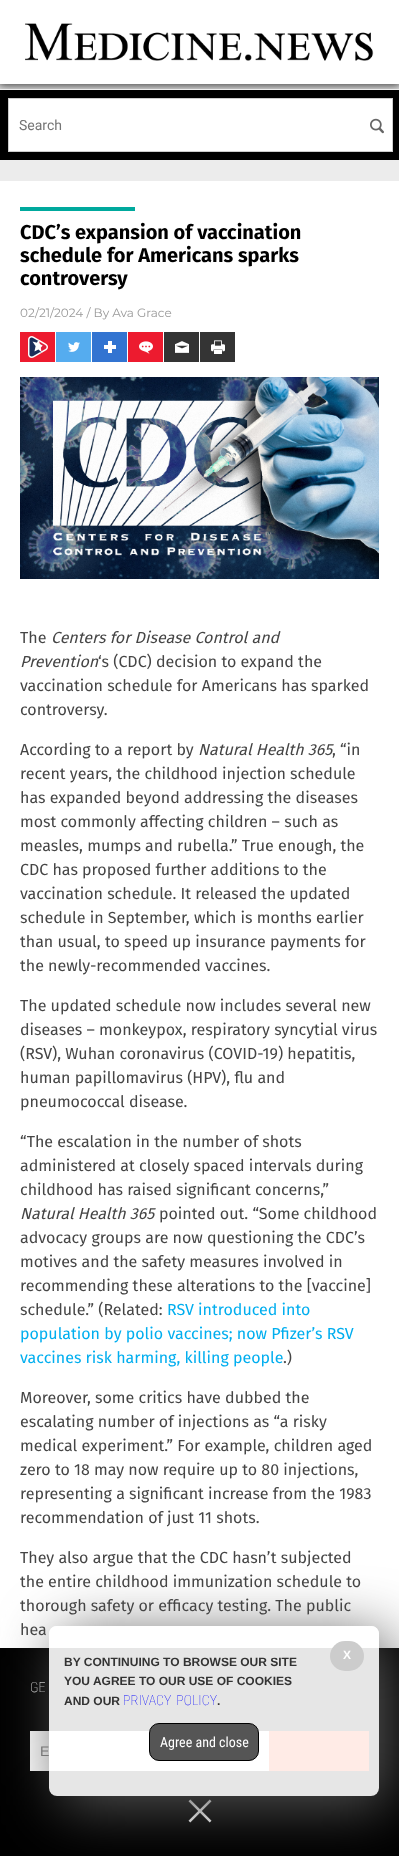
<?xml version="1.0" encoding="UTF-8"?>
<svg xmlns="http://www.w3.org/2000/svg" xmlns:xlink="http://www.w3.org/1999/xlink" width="399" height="1856">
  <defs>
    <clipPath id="clip1"><path d="M 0 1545 h 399 v 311 h -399 z m 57 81 h 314 c 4.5 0 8 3.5 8 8 v 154 c 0 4.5 -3.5 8 -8 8 h -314 c -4.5 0 -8 -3.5 -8 -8 v -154 c 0 -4.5 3.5 -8 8 -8 z" clip-rule="evenodd" /></clipPath>
  </defs>
  <rect width="100%" height="100%" fill="#ececec" />
  <rect x="-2" y="-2" width="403" height="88" fill="#000000" fill-opacity="0.75" filter="blur(5px)" />
  <rect width="399" height="84" fill="#ffffff" />
  <image x="25" y="23" width="349" height="38" xlink:href="image1.png" />
  <rect y="90" width="399" height="70" fill="#000000" />
  <rect y="89" width="399" height="1" fill="#ececec" />
  <rect x="8.5" y="98.5" width="384" height="53" fill="#ffffff" stroke="#cccccc" />
  <image x="370" y="118" width="14" height="16" xlink:href="image2.png" />
  <rect y="181" width="399" height="1467" fill="#ffffff" />
  <rect x="20" y="207" width="115" height="4" fill="#00a99d" />
  <rect x="20" y="332" width="35" height="30" fill="#ed1b2f" />
  <image x="28" y="336" width="20" height="22" xlink:href="image3.png" />
  <rect x="56" y="332" width="35" height="30" fill="#55acef" />
  <image x="68" y="342" width="12" height="10" xlink:href="image4.png" />
  <rect x="92" y="332" width="35" height="30" fill="#3274d1" />
  <image x="104" y="341" width="12" height="12" xlink:href="image5.png" />
  <rect x="128" y="332" width="35" height="30" fill="#ed1b2f" />
  <image x="139" y="341" width="14" height="13" xlink:href="image6.png" />
  <rect x="164" y="332" width="35" height="30" fill="#343434" />
  <image x="175" y="341" width="14" height="12" xlink:href="image7.png" />
  <rect x="200" y="332" width="35" height="30" fill="#343434" />
  <image x="211" y="340" width="14" height="14" xlink:href="image8.png" />
  <image x="20" y="377" width="359" height="202" xlink:href="image9.png" />
  <rect y="1648" width="399" height="208" fill="#000000" />
  <rect x="30" y="1731" width="239" height="40" fill="#ffffff" />
  <rect x="269" y="1731" width="100" height="40" fill="#ff3300" />
  <image x="188" y="1799" width="24" height="24" xlink:href="image10.png" />
  <g clip-path="url(#clip1)">
    <rect x="59" y="1636" width="330" height="170" rx="8" fill="#555555" filter="blur(30px)" />
  </g>
  <rect x="49" y="1626" width="330" height="170" rx="8" fill="#ffffff" fill-opacity="0.9" />
  <rect x="330" y="1641" width="34" height="30" rx="15" fill="#cccccc" />
  <rect x="149.5" y="1723.5" width="109" height="37" rx="9.5" fill="#555555" stroke="#000000" />
  <text x="19" y="130" style="font-family: Roboto; font-size: 14px; fill: #757575">Search</text>
  <text x="20" y="239" style="font-family: Fira Sans; font-size: 20px; font-weight: bold; fill: #000000">CDC’s expansion of vaccination</text>
  <text x="20" y="262" style="font-family: Fira Sans; font-size: 20px; font-weight: bold; fill: #000000">schedule for Americans sparks</text>
  <text x="20" y="285" style="font-family: Fira Sans; font-size: 20px; font-weight: bold; fill: #000000">controversy</text>
  <text x="20" y="317" style="font-family: Montserrat; font-size: 12px; fill: #999999">02/21/2024 / By Ava Grace</text>
  <text x="20" y="643" style="font-family: Fira Sans; font-size: 16px; fill: #454545">The</text>
  <text x="51" y="643" style="font-family: Fira Sans; font-size: 16px; font-style: italic; fill: #454545">Centers for Disease Control and</text>
  <text x="20" y="667" style="font-family: Fira Sans; font-size: 16px; font-style: italic; fill: #454545">Prevention</text>
  <text x="98" y="667" style="font-family: Fira Sans; font-size: 16px; fill: #454545">‘s (CDC) decision to expand the</text>
  <text x="20" y="691" style="font-family: Fira Sans; font-size: 16px; fill: #454545">vaccination schedule for Americans has sparked</text>
  <text x="20" y="715" style="font-family: Fira Sans; font-size: 16px; fill: #454545">controversy.</text>
  <text x="20" y="755" style="font-family: Fira Sans; font-size: 16px; fill: #454545">According to a report by</text>
  <text x="198" y="755" style="font-family: Fira Sans; font-size: 16px; font-style: italic; fill: #454545">Natural Health 365</text>
  <text x="332" y="755" style="font-family: Fira Sans; font-size: 16px; fill: #454545">, “in</text>
  <text x="20" y="779" style="font-family: Fira Sans; font-size: 16px; fill: #454545">recent years, the childhood injection schedule</text>
  <text x="20" y="803" style="font-family: Fira Sans; font-size: 16px; fill: #454545">has expanded beyond addressing the diseases</text>
  <text x="20" y="827" style="font-family: Fira Sans; font-size: 16px; fill: #454545">most commonly affecting children – such as</text>
  <text x="20" y="851" style="font-family: Fira Sans; font-size: 16px; fill: #454545">measles, mumps and rubella.” True enough, the</text>
  <text x="20" y="875" style="font-family: Fira Sans; font-size: 16px; fill: #454545">CDC has proposed further additions to the</text>
  <text x="20" y="899" style="font-family: Fira Sans; font-size: 16px; fill: #454545">vaccination schedule. It released the updated</text>
  <text x="20" y="923" style="font-family: Fira Sans; font-size: 16px; fill: #454545">schedule in September, which is months earlier</text>
  <text x="20" y="947" style="font-family: Fira Sans; font-size: 16px; fill: #454545">than usual, to speed up insurance payments for</text>
  <text x="20" y="971" style="font-family: Fira Sans; font-size: 16px; fill: #454545">the newly-recommended vaccines.</text>
  <text x="20" y="1011" style="font-family: Fira Sans; font-size: 16px; fill: #454545">The updated schedule now includes several new</text>
  <text x="20" y="1035" style="font-family: Fira Sans; font-size: 16px; fill: #454545">diseases – monkeypox, respiratory syncytial virus</text>
  <text x="20" y="1059" style="font-family: Fira Sans; font-size: 16px; fill: #454545">(RSV), Wuhan coronavirus (COVID-19) hepatitis,</text>
  <text x="20" y="1083" style="font-family: Fira Sans; font-size: 16px; fill: #454545">human papillomavirus (HPV), flu and</text>
  <text x="20" y="1107" style="font-family: Fira Sans; font-size: 16px; fill: #454545">pneumococcal disease.</text>
  <text x="20" y="1147" style="font-family: Fira Sans; font-size: 16px; fill: #454545">“The escalation in the number of shots</text>
  <text x="20" y="1171" style="font-family: Fira Sans; font-size: 16px; fill: #454545">administered at closely spaced intervals during</text>
  <text x="20" y="1195" style="font-family: Fira Sans; font-size: 16px; fill: #454545">childhood has raised significant concerns,”</text>
  <text x="20" y="1219" style="font-family: Fira Sans; font-size: 16px; font-style: italic; fill: #454545">Natural Health 365</text>
  <text x="159" y="1219" style="font-family: Fira Sans; font-size: 16px; fill: #454545">pointed out. “Some childhood</text>
  <text x="20" y="1243" style="font-family: Fira Sans; font-size: 16px; fill: #454545">advocacy groups are now questioning the CDC’s</text>
  <text x="20" y="1267" style="font-family: Fira Sans; font-size: 16px; fill: #454545">motives and the safety measures involved in</text>
  <text x="20" y="1291" style="font-family: Fira Sans; font-size: 16px; fill: #454545">recommending these alterations to the [vaccine]</text>
  <text x="20" y="1315" style="font-family: Fira Sans; font-size: 16px; fill: #454545">schedule.” (Related:</text>
  <text x="167" y="1315" style="font-family: Fira Sans; font-size: 16px; fill: #00aeef">RSV introduced into</text>
  <text x="20" y="1339" style="font-family: Fira Sans; font-size: 16px; fill: #00aeef">population by polio vaccines; now Pfizer’s RSV</text>
  <text x="20" y="1363" style="font-family: Fira Sans; font-size: 16px; fill: #00aeef">vaccines risk harming, killing people</text>
  <text x="283" y="1363" style="font-family: Fira Sans; font-size: 16px; fill: #454545">.)</text>
  <text x="20" y="1403" style="font-family: Fira Sans; font-size: 16px; fill: #454545">Moreover, some critics have dubbed the</text>
  <text x="20" y="1427" style="font-family: Fira Sans; font-size: 16px; fill: #454545">escalating number of injections as “a risky</text>
  <text x="20" y="1451" style="font-family: Fira Sans; font-size: 16px; fill: #454545">medical experiment.” For example, children aged</text>
  <text x="20" y="1475" style="font-family: Fira Sans; font-size: 16px; fill: #454545">zero to 18 may now require up to 80 injections,</text>
  <text x="20" y="1499" style="font-family: Fira Sans; font-size: 16px; fill: #454545">representing a significant increase from the 1983</text>
  <text x="20" y="1523" style="font-family: Fira Sans; font-size: 16px; fill: #454545">recommendation of just 11 shots.</text>
  <text x="20" y="1563" style="font-family: Fira Sans; font-size: 16px; fill: #454545">They also argue that the CDC hasn’t subjected</text>
  <text x="20" y="1587" style="font-family: Fira Sans; font-size: 16px; fill: #454545">the entire childhood immunization schedule to</text>
  <text x="20" y="1611" style="font-family: Fira Sans; font-size: 16px; fill: #454545">thorough safety or efficacy testing. The public</text>
  <text x="20" y="1635" style="font-family: Fira Sans; font-size: 16px; fill: #454545">hea</text>
  <text x="30" y="1692" style="font-family: Roboto Condensed; font-size: 14px; font-weight: 100; fill: #ffffff">GE</text>
  <text x="40" y="1756" style="font-family: Liberation Sans; font-size: 14px; fill: #757575">E</text>
  <text x="343" y="1659" style="font-family: Liberation Sans; font-size: 12px; font-weight: bold; fill: #ffffff">X</text>
  <text x="64" y="1666" style="font-family: Liberation Sans; font-size: 12px; font-weight: bold; fill: #333333">BY CONTINUING TO BROWSE OUR SITE</text>
  <text x="64" y="1685" style="font-family: Liberation Sans; font-size: 12px; font-weight: bold; fill: #333333">YOU AGREE TO OUR USE OF COOKIES</text>
  <text x="64" y="1705" style="font-family: Liberation Sans; font-size: 12px; font-weight: bold; fill: #333333">AND OUR</text>
  <text x="123" y="1705" word-spacing="2" style="font-family: Roboto Condensed; font-size: 14px; font-weight: 100; fill: #0000ff">PRIVACY POLICY</text>
  <text x="217" y="1705" style="font-family: Liberation Sans; font-size: 12px; font-weight: bold; fill: #333333">.</text>
  <text x="160" y="1747" style="font-family: Roboto Condensed; font-size: 14px; fill: #ffffff">Agree and close</text>
</svg>
